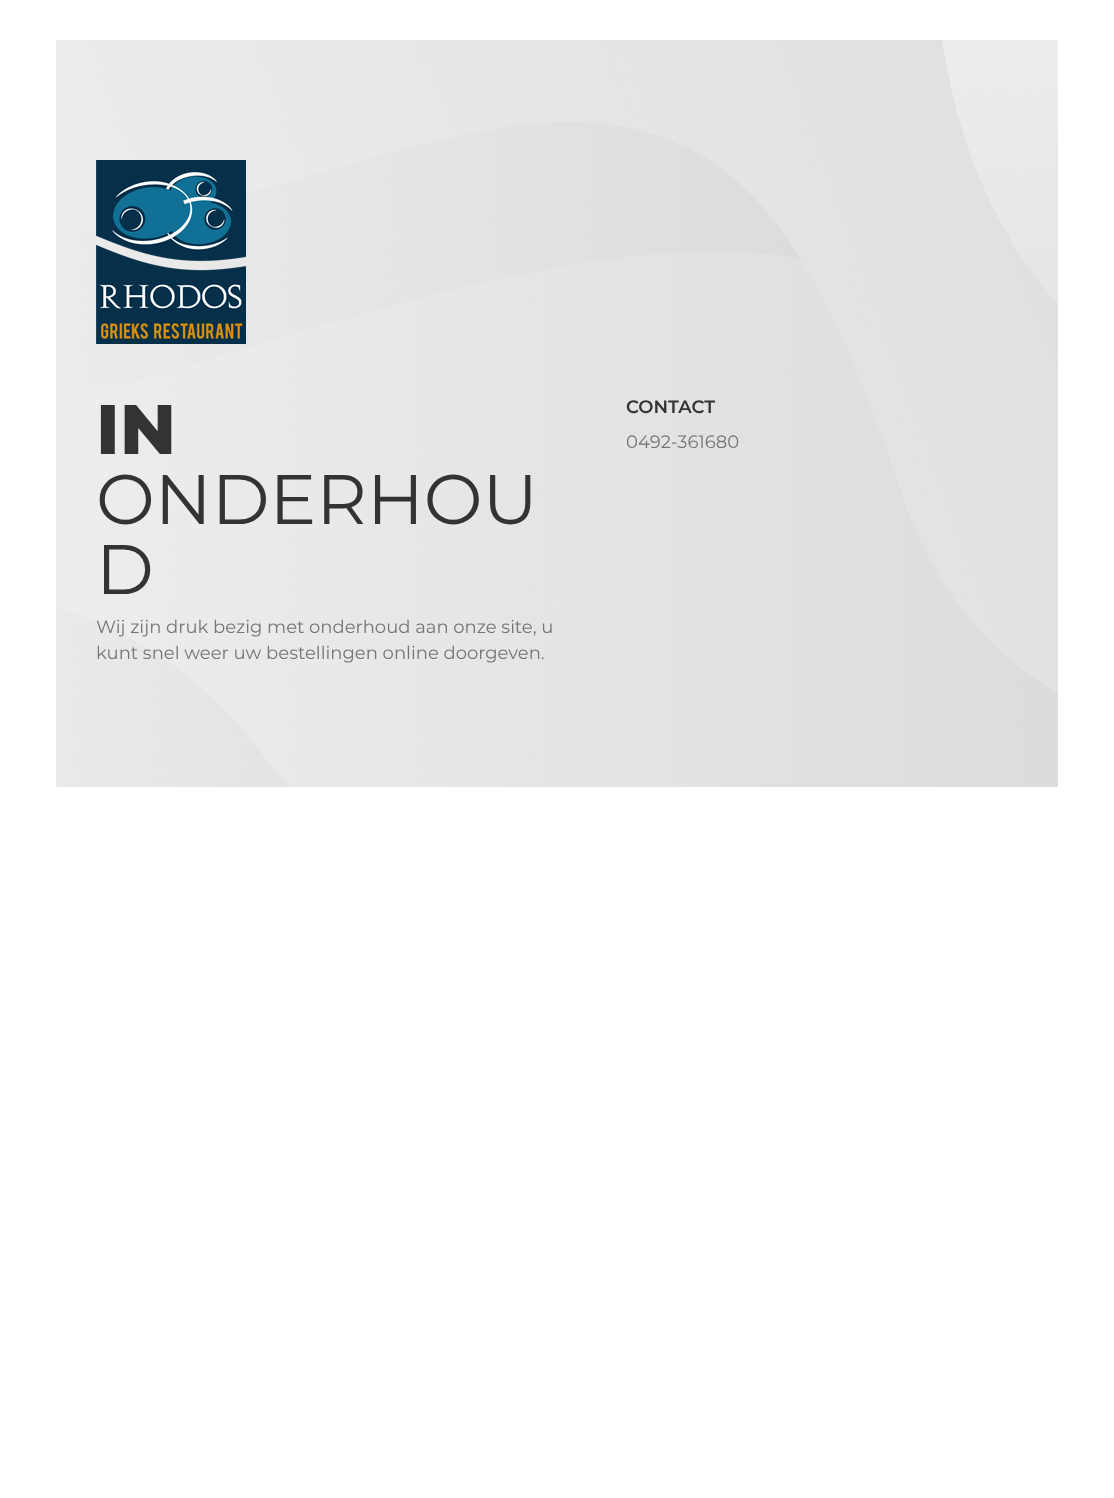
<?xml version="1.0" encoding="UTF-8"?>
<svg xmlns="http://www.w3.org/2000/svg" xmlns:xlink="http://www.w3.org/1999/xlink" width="1114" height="1498">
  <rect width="100%" height="100%" fill="#ffffff" />
  <image x="56" y="40" width="1002" height="747" xlink:href="image1.png" />
  <image x="96" y="160" width="150" height="184" xlink:href="image2.png" />
  <text x="96" y="454" style="font-family: Montserrat; font-size: 70px; font-weight: 800; fill: #333333">IN</text>
  <text x="96" y="524" style="font-family: Montserrat; font-size: 70px; fill: #333333">ONDERHOU</text>
  <text x="96" y="594" style="font-family: Montserrat; font-size: 70px; fill: #333333">D</text>
  <text x="96" y="633" style="font-family: Montserrat; font-size: 18px; fill: #757575">Wij zijn druk bezig met onderhoud aan onze site, u</text>
  <text x="96" y="659" style="font-family: Montserrat; font-size: 18px; fill: #757575">kunt snel weer uw bestellingen online doorgeven.</text>
  <text x="626" y="413" style="font-family: Montserrat; font-size: 18px; font-weight: 600; fill: #333333">CONTACT</text>
  <text x="626" y="448" style="font-family: Montserrat; font-size: 18px; fill: #757575">0492-361680</text>
</svg>
